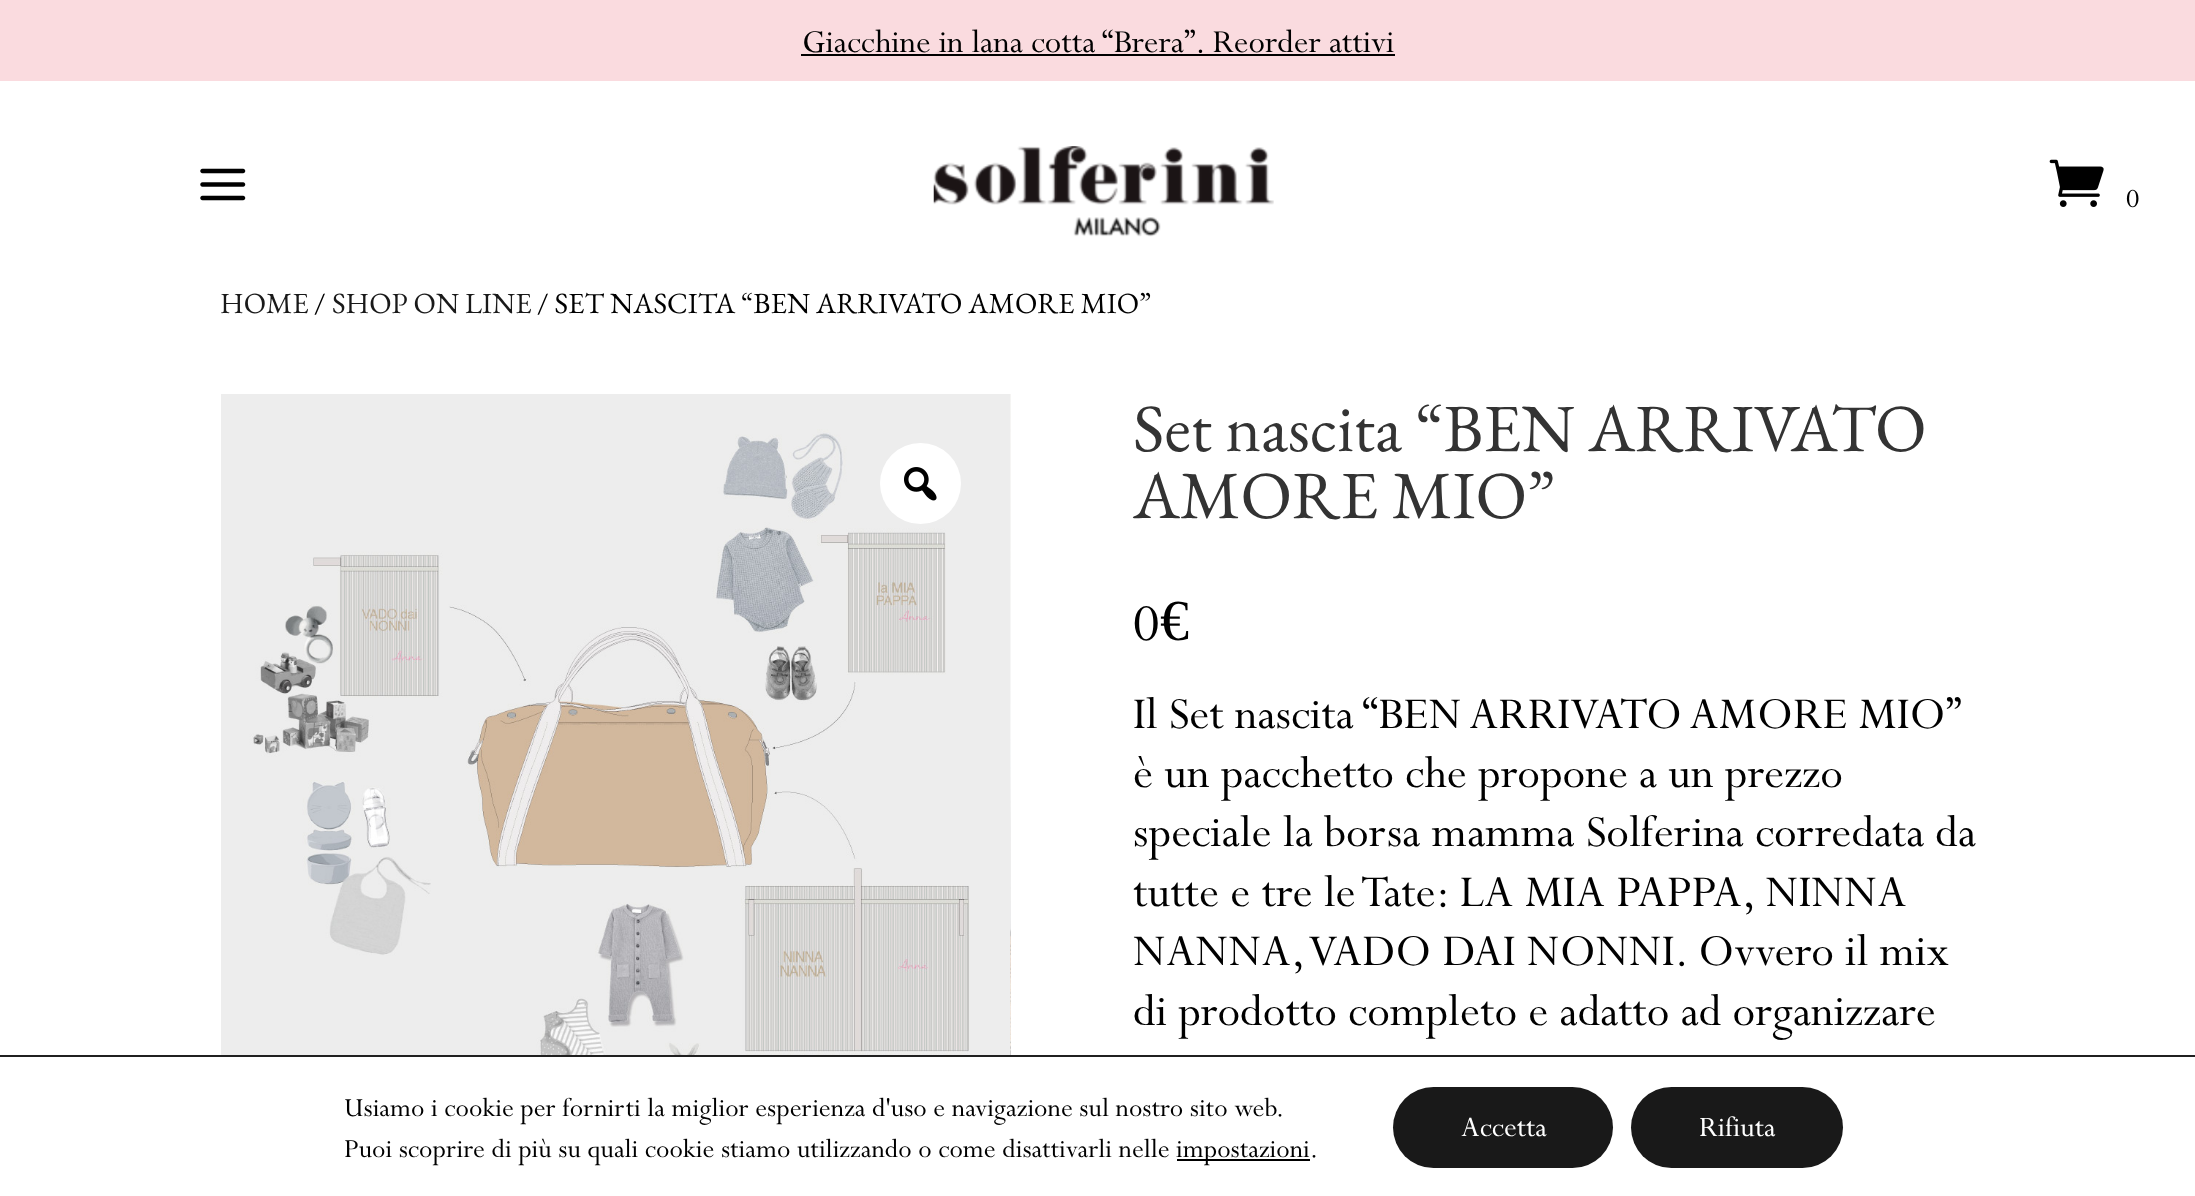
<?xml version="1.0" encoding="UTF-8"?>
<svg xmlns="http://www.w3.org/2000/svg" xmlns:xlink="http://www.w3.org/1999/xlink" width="2195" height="1196">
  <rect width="100%" height="100%" fill="#ffffff" />
  <rect width="2195" height="81" fill="#fadbdf" />
  <rect x="801" y="54" width="594" height="2" fill="#000000" />
  <image x="200" y="168" width="46" height="33" xlink:href="image1.png" />
  <image x="933" y="146" width="341" height="91" xlink:href="image2.png" />
  <image x="2049" y="159" width="55" height="48" xlink:href="image3.png" />
  <image x="221" y="394" width="789" height="661" xlink:href="image4.png" />
  <image x="1010" y="394" width="1" height="661" xlink:href="image5.png" />
  <circle cx="920.5" cy="483.5" r="40.5" fill="#ffffff" />
  <image x="904" y="467" width="33" height="34" xlink:href="image6.png" />
  <rect y="1055" width="2195" height="2" fill="#202020" />
  <rect x="1177" y="1159" width="133" height="2" fill="#000000" />
  <rect x="1393" y="1087" width="220" height="81" rx="40.5" fill="#191919" />
  <rect x="1631" y="1087" width="212" height="81" rx="40.5" fill="#191919" />
  <text x="802" y="52" style="font-family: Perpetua; font-size: 36px; fill: #000000">Giacchine in lana cotta “Brera”. Reorder attivi</text>
  <text x="2126" y="207" style="font-family: Perpetua; font-size: 29.25px; fill: #000000">0</text>
  <text x="220" y="313" style="font-family: EB Garamond; font-size: 29.25px; fill: #191919">HOME</text>
  <text x="314" y="313" style="font-family: EB Garamond; font-size: 29.25px; fill: #000000">/</text>
  <text x="332" y="313" style="font-family: EB Garamond; font-size: 29.25px; fill: #191919">SHOP ON LINE</text>
  <text x="537" y="313" style="font-family: EB Garamond; font-size: 29.25px; fill: #000000">/ SET NASCITA “BEN ARRIVATO AMORE MIO”</text>
  <text x="1133" y="451" style="font-family: EB Garamond; font-size: 67.5px; fill: #333333">Set nascita “BEN ARRIVATO</text>
  <text x="1133" y="518" style="font-family: EB Garamond; font-size: 67.5px; fill: #333333">AMORE MIO”</text>
  <text x="1133" y="640" style="font-family: Perpetua; font-size: 58px; fill: #000000">0</text>
  <text x="1160" y="640" style="font-family: Liberation Serif; font-size: 58px; fill: #000000">€</text>
  <text x="1133" y="728" word-spacing="-0.25" style="font-family: Perpetua; font-size: 49.5px; fill: #000000">Il Set nascita “BEN ARRIVATO AMORE MIO”</text>
  <text x="1133" y="787" style="font-family: Perpetua; font-size: 49.5px; fill: #000000">è un pacchetto che propone a un prezzo</text>
  <text x="1133" y="846" style="font-family: Perpetua; font-size: 49.5px; fill: #000000">speciale la borsa mamma Solferina corredata da</text>
  <text x="1133" y="906" style="font-family: Perpetua; font-size: 49.5px; fill: #000000">tutte e tre le Tate: LA MIA PAPPA, NINNA</text>
  <text x="1133" y="965" style="font-family: Perpetua; font-size: 49.5px; fill: #000000">NANNA, VADO DAI NONNI. Ovvero il mix</text>
  <text x="1133" y="1025" style="font-family: Perpetua; font-size: 49.5px; fill: #000000">di prodotto completo e adatto ad organizzare</text>
  <text x="344" y="1116" style="font-family: Perpetua; font-size: 29.25px; fill: #000000">Usiamo i cookie per fornirti la miglior esperienza d'uso e navigazione sul nostro sito web.</text>
  <text x="344" y="1157" style="font-family: Perpetua; font-size: 29.25px; fill: #000000">Puoi scoprire di più su quali cookie stiamo utilizzando o come disattivarli nelle</text>
  <text x="1176" y="1157" style="font-family: Perpetua; font-size: 29.25px; fill: #000000">impostazioni.</text>
  <text x="1461" y="1136" style="font-family: Perpetua; font-size: 31.5px; fill: #ffffff">Accetta</text>
  <text x="1699" y="1136" style="font-family: Perpetua; font-size: 31.5px; fill: #ffffff">Rifiuta</text>
</svg>
